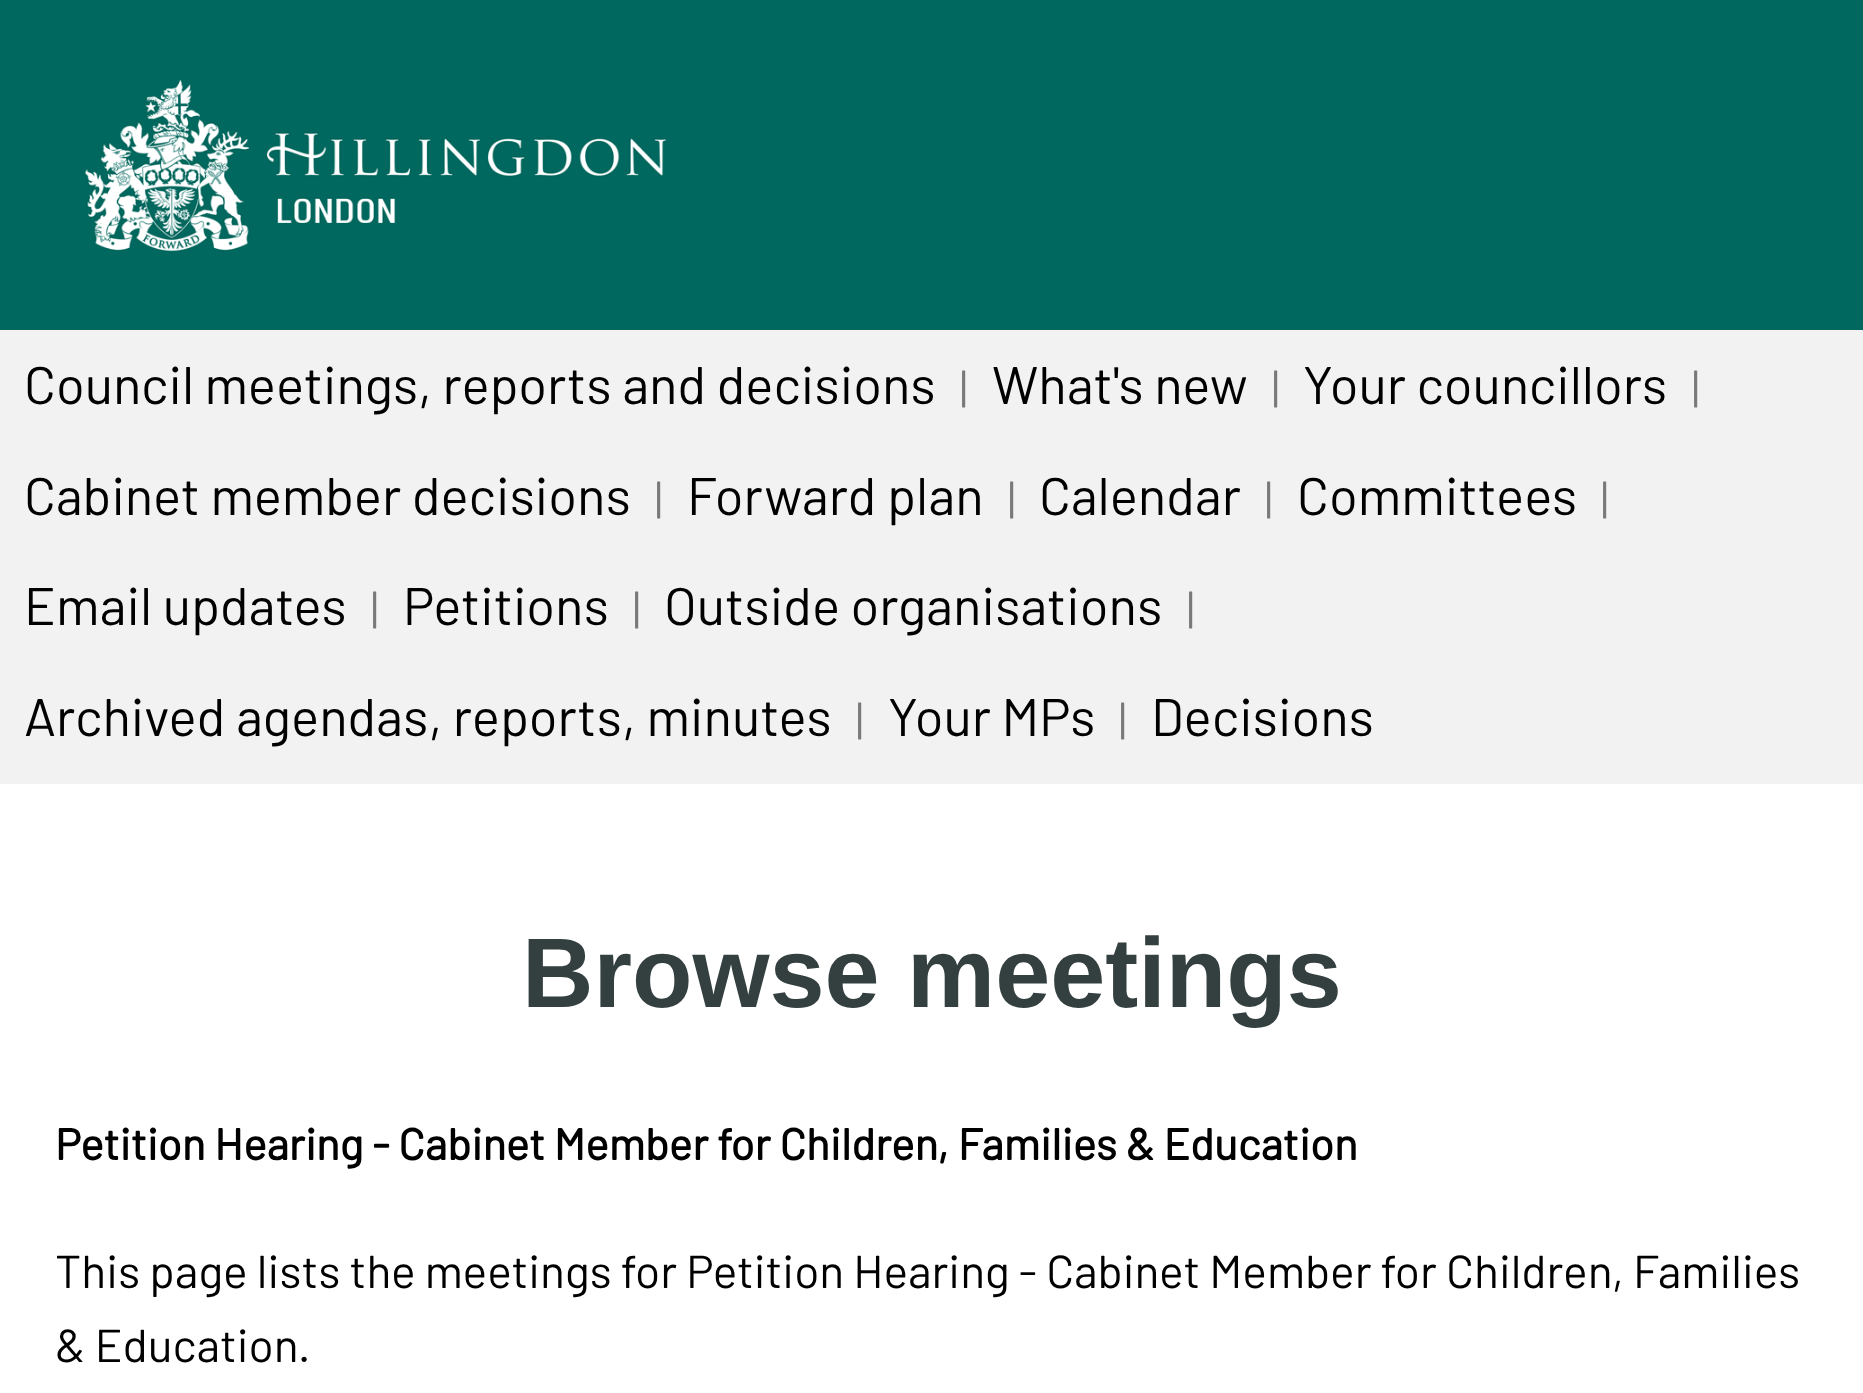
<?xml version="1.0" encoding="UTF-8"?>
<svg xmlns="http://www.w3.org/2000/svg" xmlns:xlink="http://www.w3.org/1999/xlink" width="1863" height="1393">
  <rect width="100%" height="100%" fill="#ffffff" />
  <rect y="330" width="1863" height="454" fill="#f2f2f2" />
  <rect width="1863" height="330" fill="#00685e" />
  <image x="85" y="79" width="581" height="173" xlink:href="image1.png" />
  <text x="24" y="404" style="font-family: Barlow; font-size: 52.75px; fill: #000000">Council meetings, reports and decisions</text>
  <text x="960" y="404" style="font-family: Barlow; font-size: 44px; fill: #797979">|</text>
  <text x="992" y="404" style="font-family: Barlow; font-size: 52.75px; fill: #000000">What's new</text>
  <text x="1272" y="404" style="font-family: Barlow; font-size: 44px; fill: #797979">|</text>
  <text x="1303" y="404" style="font-family: Barlow; font-size: 52.75px; fill: #000000">Your councillors</text>
  <text x="1692" y="404" style="font-family: Barlow; font-size: 44px; fill: #797979">|</text>
  <text x="24" y="515" style="font-family: Barlow; font-size: 52.75px; fill: #000000">Cabinet member decisions</text>
  <text x="655" y="515" style="font-family: Barlow; font-size: 44px; fill: #797979">|</text>
  <text x="687" y="515" style="font-family: Barlow; font-size: 52.75px; fill: #000000">Forward plan</text>
  <text x="1008" y="515" style="font-family: Barlow; font-size: 44px; fill: #797979">|</text>
  <text x="1039" y="515" style="font-family: Barlow; font-size: 52.75px; fill: #000000">Calendar</text>
  <text x="1265" y="515" style="font-family: Barlow; font-size: 44px; fill: #797979">|</text>
  <text x="1297" y="515" style="font-family: Barlow; font-size: 52.75px; fill: #000000">Committees</text>
  <text x="1601" y="515" style="font-family: Barlow; font-size: 44px; fill: #797979">|</text>
  <text x="24" y="625" style="font-family: Barlow; font-size: 52.75px; fill: #000000">Email updates</text>
  <text x="371" y="625" style="font-family: Barlow; font-size: 44px; fill: #797979">|</text>
  <text x="403" y="625" style="font-family: Barlow; font-size: 52.75px; fill: #000000">Petitions</text>
  <text x="633" y="625" style="font-family: Barlow; font-size: 44px; fill: #797979">|</text>
  <text x="664" y="625" style="font-family: Barlow; font-size: 52.75px; fill: #000000">Outside organisations</text>
  <text x="1187" y="625" style="font-family: Barlow; font-size: 44px; fill: #797979">|</text>
  <text x="24" y="736" style="font-family: Barlow; font-size: 52.75px; fill: #000000">Archived agendas, reports, minutes</text>
  <text x="856" y="736" style="font-family: Barlow; font-size: 44px; fill: #797979">|</text>
  <text x="888" y="736" style="font-family: Barlow; font-size: 52.75px; fill: #000000">Your MPs</text>
  <text x="1119" y="736" style="font-family: Barlow; font-size: 44px; fill: #797979">|</text>
  <text x="1151" y="736" style="font-family: Barlow; font-size: 52.75px; fill: #000000">Decisions</text>
  <text x="522" y="1007" style="font-family: Liberation Sans; font-size: 99px; font-weight: bold; fill: #34403f">Browse meetings</text>
  <text x="55" y="1160" style="font-family: Barlow; font-size: 44px; font-weight: bold; fill: #000000">Petition Hearing - Cabinet Member for Children, Families &amp; Education</text>
  <text x="55" y="1288" word-spacing="-0.1" style="font-family: Barlow; font-size: 46.2px; fill: #000000">This page lists the meetings for Petition Hearing - Cabinet Member for Children, Families</text>
  <text x="55" y="1362" style="font-family: Barlow; font-size: 46.2px; fill: #000000">&amp; Education.</text>
</svg>
